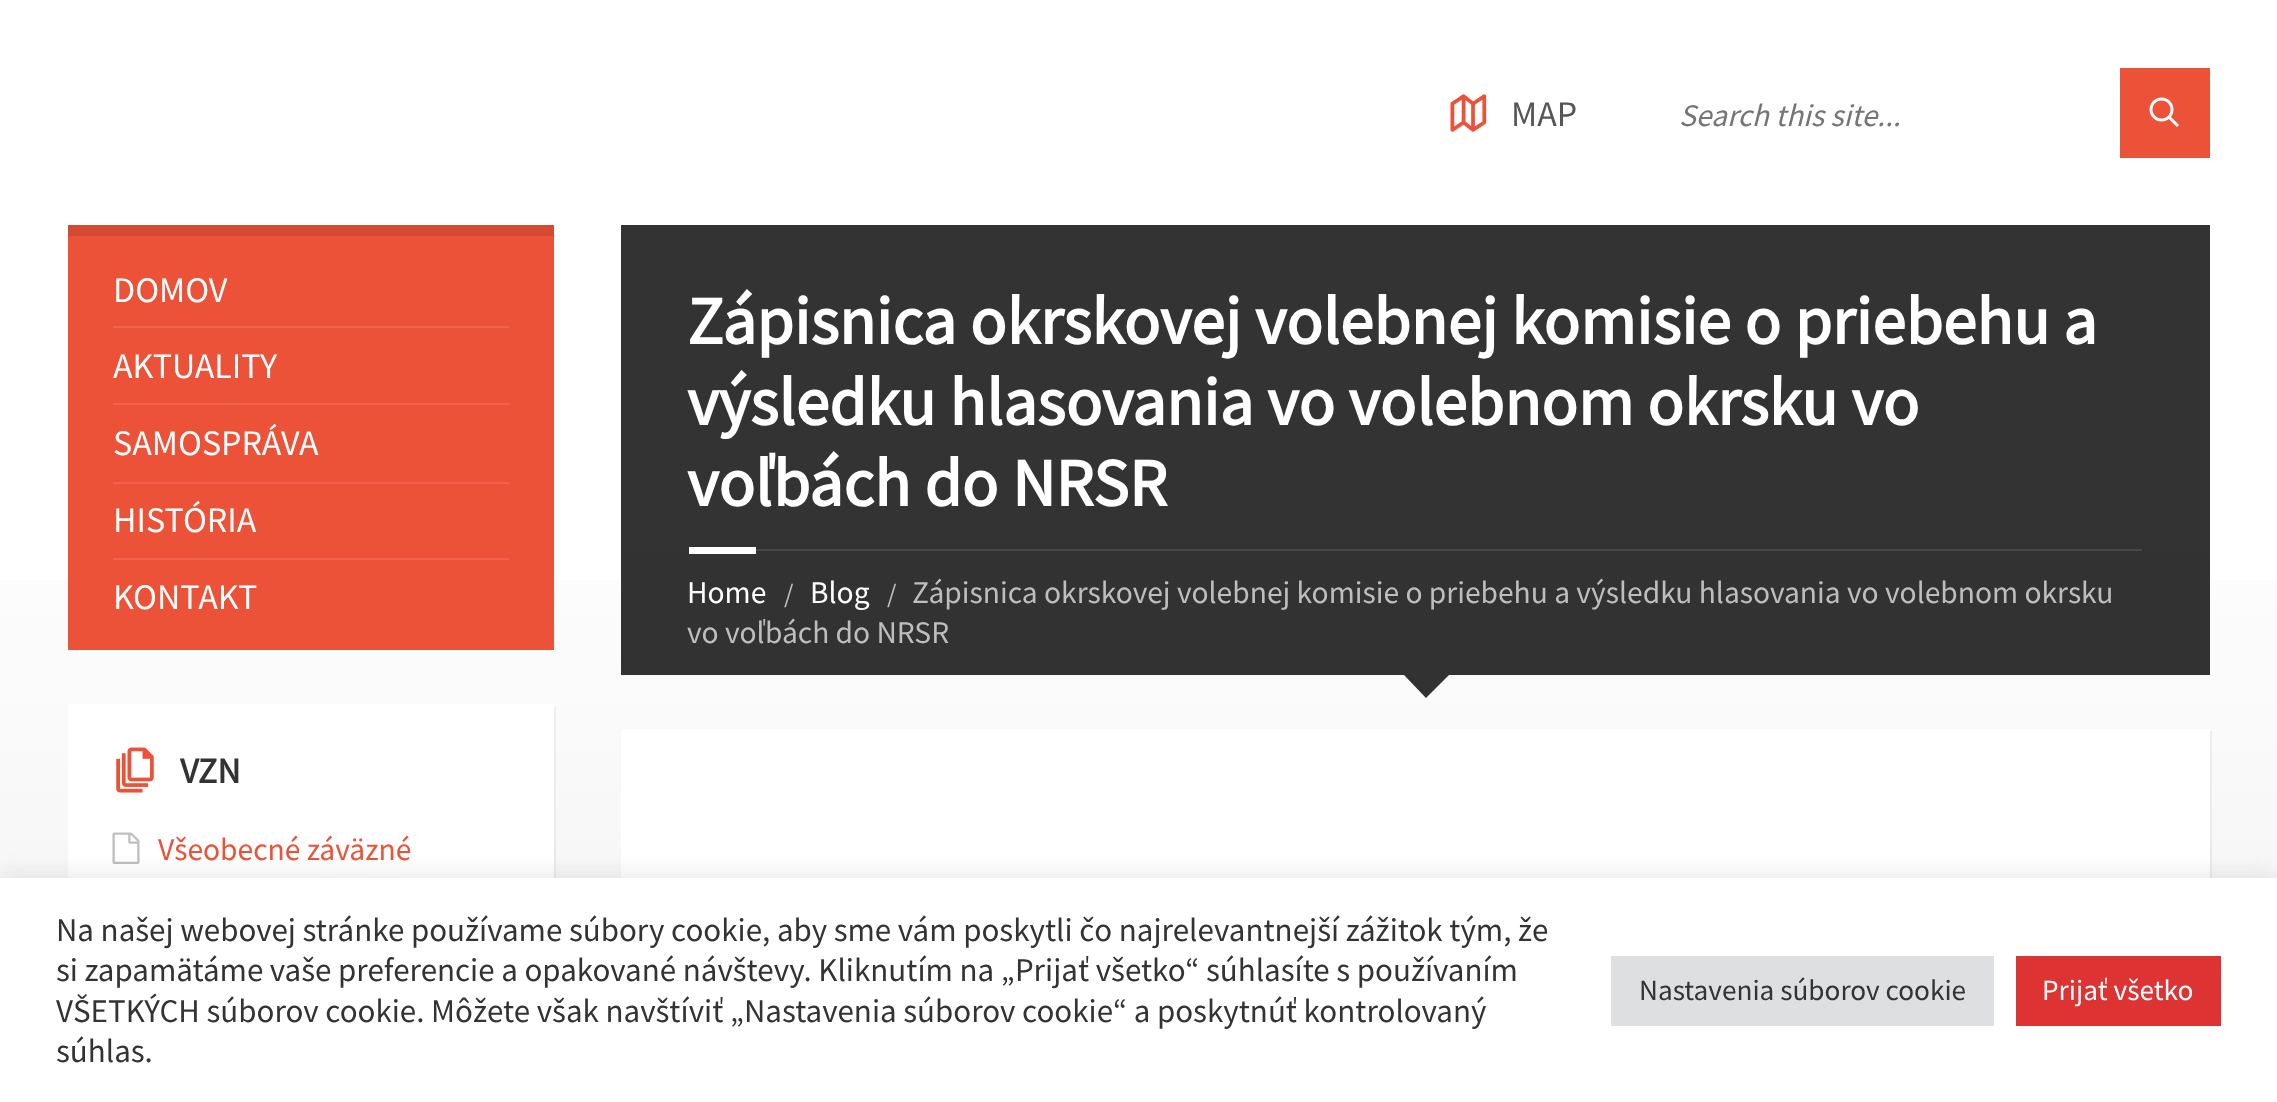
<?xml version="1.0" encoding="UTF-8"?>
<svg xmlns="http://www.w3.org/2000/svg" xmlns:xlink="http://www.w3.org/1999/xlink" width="2277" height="1102">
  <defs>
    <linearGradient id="g1" gradientUnits="userSpaceOnUse" x1="1139" y1="450" x2="1139" y2="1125"><stop offset="0" stop-color="#ffffff" /><stop offset="1" stop-color="#f2f2f2" /></linearGradient>
    <linearGradient id="g2" gradientUnits="userSpaceOnUse" x1="1139" y1="450" x2="1139" y2="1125"><stop offset="0" stop-color="#333333" /><stop offset="1" stop-color="#303030" /></linearGradient>
  </defs>
  <rect width="100%" height="100%" fill="#ffffff" />
  <image x="1450" y="94" width="37" height="38" xlink:href="image1.png" />
  <rect x="2120" y="68" width="90" height="90" fill="#ec5237" />
  <image x="2149" y="97" width="30" height="30" xlink:href="image2.png" />
  <rect x="621" y="225" width="1589" height="225" fill="#333333" />
  <rect y="580" width="2277" height="298" fill="url(#g1)" />
  <rect x="621" y="450" width="1589" height="225" fill="url(#g2)" />
  <rect x="68" y="236" width="486" height="414" fill="#ec5237" />
  <rect x="68" y="225" width="486" height="11" fill="#d44a32" />
  <rect x="113" y="326" width="396" height="2" fill="#ee634b" />
  <rect x="113" y="403" width="396" height="2" fill="#ee634b" />
  <rect x="113" y="482" width="396" height="2" fill="#ee634b" />
  <rect x="113" y="558" width="396" height="2" fill="#ee634b" />
  <path d="M 70 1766 v 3 h 486 v -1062 h -2 v 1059 z" fill="#000000" fill-opacity="0.05" />
  <rect x="68" y="704" width="486" height="174" fill="#ffffff" />
  <image x="116" y="747" width="38" height="46" xlink:href="image3.png" />
  <image x="112" y="832" width="28" height="32" xlink:href="image4.png" />
  <rect x="756" y="549" width="1386" height="2" fill="#474747" />
  <rect x="689" y="547" width="67" height="7" fill="#ffffff" />
  <path d="M 1404 675 h 45 l -23 23 z" fill="#323232" />
  <path d="M 623 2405 v 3 h 1589 v -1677 h -2 v 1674 z" fill="#000000" fill-opacity="0.05" />
  <rect x="621" y="729" width="1589" height="149" fill="#ffffff" />
  <rect y="875" width="2277" height="225" fill="#acabab" fill-opacity="0.3" filter="blur(11px)" />
  <rect y="878" width="2277" height="224" fill="#ffffff" />
  <rect x="1611" y="956" width="383" height="70" fill="#dedfe0" />
  <rect x="2016" y="956" width="205" height="70" fill="#dd3333" />
  <text x="1511" y="126" style="font-family: Source Sans Pro; font-size: 36px; fill: #565656">MAP</text>
  <text x="1679" y="126" style="font-family: Source Sans Pro; font-size: 31.5px; font-style: italic; fill: #757575">Search this site...</text>
  <text x="113" y="302" style="font-family: Source Sans Pro; font-size: 36px; fill: #ffffff">DOMOV</text>
  <text x="113" y="378" style="font-family: Source Sans Pro; font-size: 36px; fill: #ffffff">AKTUALITY</text>
  <text x="113" y="455" style="font-family: Source Sans Pro; font-size: 36px; fill: #ffffff">SAMOSPRÁVA</text>
  <text x="113" y="532" style="font-family: Source Sans Pro; font-size: 36px; fill: #ffffff">HISTÓRIA</text>
  <text x="113" y="609" style="font-family: Source Sans Pro; font-size: 36px; fill: #ffffff">KONTAKT</text>
  <text x="180" y="783" style="font-family: Source Sans Pro; font-size: 36px; font-weight: bold; fill: #333333">VZN</text>
  <text x="158" y="860" style="font-family: Source Sans Pro; font-size: 31.5px; fill: #ec5237">Všeobecné záväzné</text>
  <text x="687" y="344" style="font-family: Source Sans Pro; font-size: 67.5px; font-weight: bold; fill: #ffffff">Zápisnica okrskovej volebnej komisie o priebehu a</text>
  <text x="687" y="425" style="font-family: Source Sans Pro; font-size: 67.5px; font-weight: bold; fill: #ffffff">výsledku hlasovania vo volebnom okrsku vo</text>
  <text x="687" y="506" style="font-family: Source Sans Pro; font-size: 67.5px; font-weight: bold; fill: #ffffff">voľbách do NRSR</text>
  <text x="687" y="603" style="font-family: Source Sans Pro; font-size: 31.5px; fill: #ffffff">Home</text>
  <text x="784" y="603" style="font-family: Source Sans Pro; font-size: 27px; fill: #bebebe">/</text>
  <text x="810" y="603" style="font-family: Source Sans Pro; font-size: 31.5px; fill: #ffffff">Blog</text>
  <text x="887" y="603" style="font-family: Source Sans Pro; font-size: 27px; fill: #bebebe">/</text>
  <text x="912" y="603" style="font-family: Source Sans Pro; font-size: 31.5px; fill: #bebebe">Zápisnica okrskovej volebnej komisie o priebehu a výsledku hlasovania vo volebnom okrsku</text>
  <text x="687" y="643" style="font-family: Source Sans Pro; font-size: 31.5px; fill: #bebebe">vo voľbách do NRSR</text>
  <text x="56" y="941" style="font-family: Source Sans Pro; font-size: 33px; fill: #333333">Na našej webovej stránke používame súbory cookie, aby sme vám poskytli čo najrelevantnejší zážitok tým, že</text>
  <text x="56" y="981" style="font-family: Source Sans Pro; font-size: 33px; fill: #333333">si zapamätáme vaše preferencie a opakované návštevy. Kliknutím na „Prijať všetko“ súhlasíte s používaním</text>
  <text x="56" y="1022" style="font-family: Source Sans Pro; font-size: 33px; fill: #333333">VŠETKÝCH súborov cookie. Môžete však navštíviť „Nastavenia súborov cookie“ a poskytnúť kontrolovaný</text>
  <text x="56" y="1062" style="font-family: Source Sans Pro; font-size: 33px; fill: #333333">súhlas.</text>
  <text x="1639" y="1000" style="font-family: Source Sans Pro; font-size: 29.25px; fill: #333333">Nastavenia súborov cookie</text>
  <text x="2042" y="1000" style="font-family: Source Sans Pro; font-size: 29.25px; fill: #ffffff">Prijať všetko</text>
</svg>
